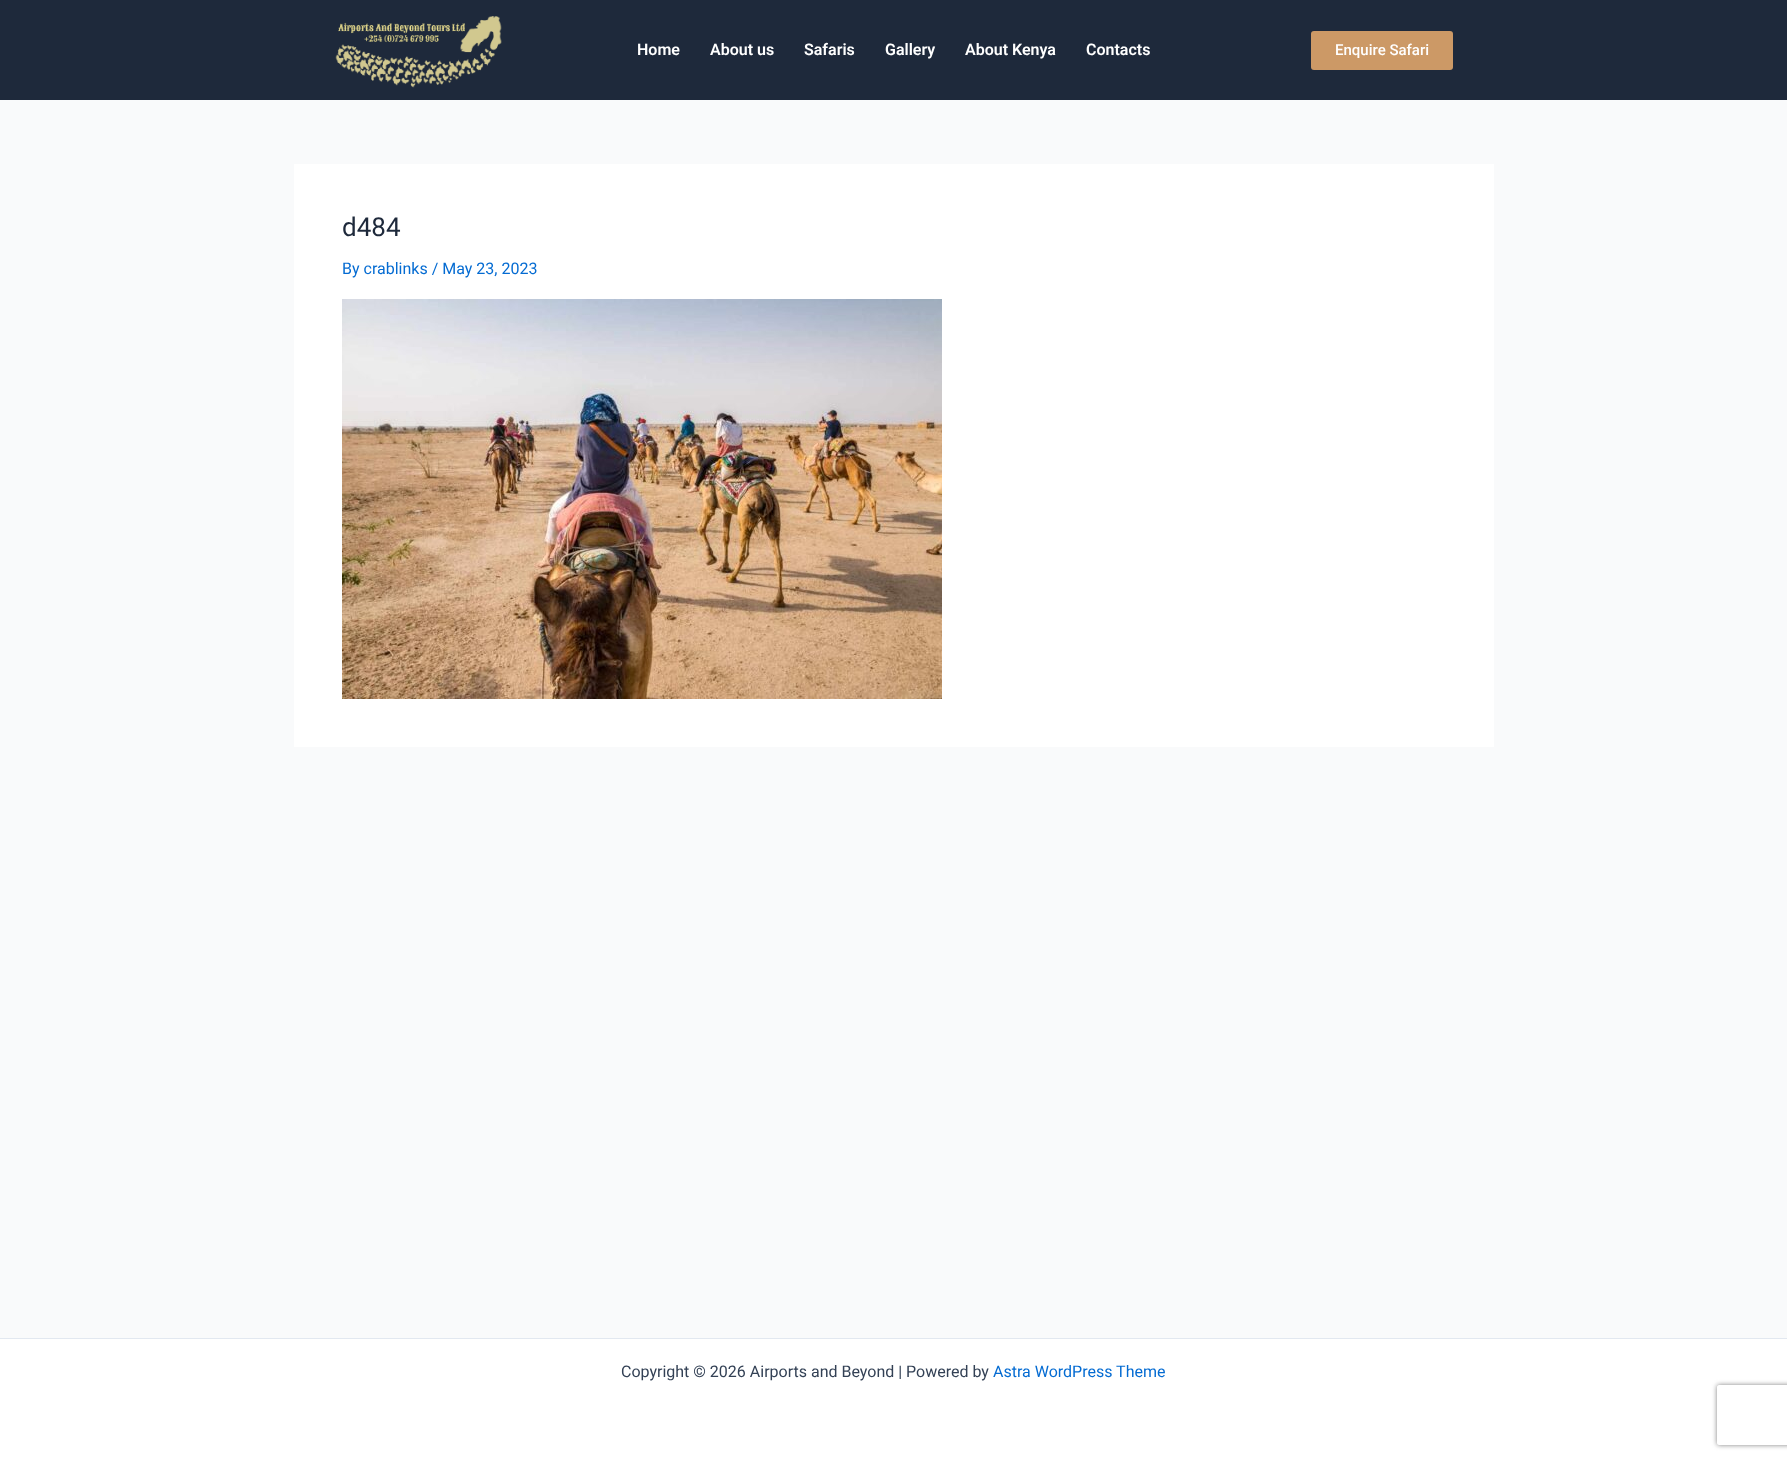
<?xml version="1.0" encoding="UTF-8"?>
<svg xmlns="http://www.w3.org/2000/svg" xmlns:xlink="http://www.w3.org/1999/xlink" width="1787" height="1459">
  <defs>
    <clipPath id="clip1"><path d="M 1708 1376 h 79 v 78 h -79 z m 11 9 h 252 c 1 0 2 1 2 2 v 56 c 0 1 -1 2 -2 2 h -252 c -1 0 -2 -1 -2 -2 v -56 c 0 -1 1 -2 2 -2 z" clip-rule="evenodd" /></clipPath>
  </defs>
  <rect width="100%" height="100%" fill="#f9fafb" />
  <rect width="1787" height="100" fill="#1e293b" />
  <image x="335" y="16" width="167" height="72" xlink:href="image1.png" />
  <rect x="1311" y="31" width="142" height="39" rx="3" fill="#cc9966" />
  <rect x="294" y="164" width="1200" height="583" fill="#ffffff" />
  <image x="342" y="299" width="600" height="400" xlink:href="image2.png" />
  <rect y="1339" width="1787" height="120" fill="#ffffff" />
  <rect y="1338" width="1787" height="1" fill="#e2e8f0" />
  <g clip-path="url(#clip1)">
    <rect x="1717" y="1385" width="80" height="60" rx="2" fill="#808080" filter="blur(2.5px)" />
  </g>
  <text x="637" y="55" style="font-family: Roboto; font-size: 16px; font-weight: 600; fill: #ffffff">Home</text>
  <text x="710" y="55" style="font-family: Roboto; font-size: 16px; font-weight: 600; fill: #ffffff">About us</text>
  <text x="804" y="55" style="font-family: Roboto; font-size: 16px; font-weight: 600; fill: #ffffff">Safaris</text>
  <text x="885" y="55" style="font-family: Roboto; font-size: 16px; font-weight: 600; fill: #ffffff">Gallery</text>
  <text x="965" y="55" style="font-family: Roboto; font-size: 16px; font-weight: 600; fill: #ffffff">About Kenya</text>
  <text x="1086" y="55" style="font-family: Roboto; font-size: 16px; font-weight: 600; fill: #ffffff">Contacts</text>
  <text x="1335" y="55" style="font-family: Roboto; font-size: 15px; font-weight: 500; fill: #ffffff">Enquire Safari</text>
  <text x="342" y="236" style="font-family: Roboto; font-size: 26px; fill: #1e293b">d484</text>
  <text x="342" y="274" style="font-family: Roboto; font-size: 16px; fill: #046bd2">By crablinks / May 23, 2023</text>
  <text x="621" y="1377" style="font-family: Roboto; font-size: 16px; fill: #334155">Copyright © 2026 Airports and Beyond | Powered by</text>
  <text x="993" y="1377" style="font-family: Roboto; font-size: 16px; fill: #046bd2">Astra WordPress Theme</text>
</svg>
